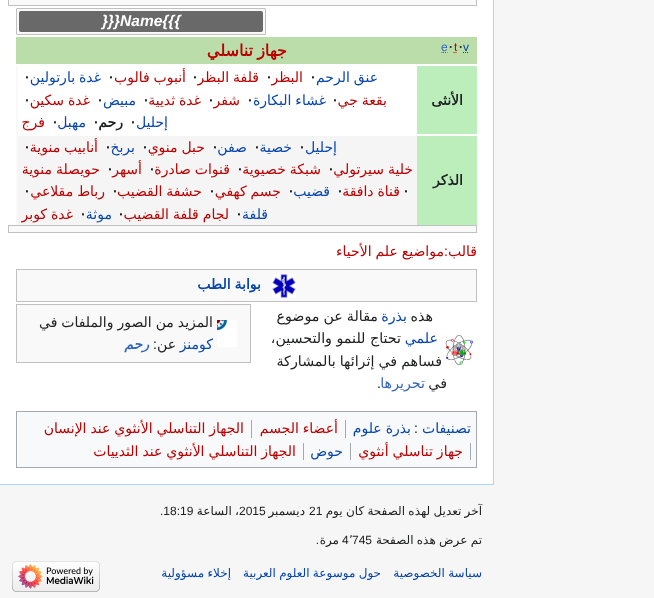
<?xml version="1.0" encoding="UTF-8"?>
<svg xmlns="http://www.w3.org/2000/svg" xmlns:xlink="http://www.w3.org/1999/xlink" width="654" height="598">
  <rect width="100%" height="100%" fill="#f6f6f6" />
  <rect width="493" height="484" fill="#ffffff" />
  <rect x="493" width="1" height="485" fill="#a7d7f9" />
  <rect y="484" width="494" height="1" fill="#a7d7f9" />
  <rect x="8.5" y="-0.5" width="468" height="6" fill="#f9f9f9" stroke="#c0c0c0" />
  <rect x="16.5" y="8.5" width="249" height="26" rx="0.5" fill="#f9f9f9" stroke="#c0c0c0" />
  <rect x="19" y="11" width="244" height="21" rx="2" fill="#696969" />
  <rect x="16" y="37" width="461" height="27" fill="#bbddaa" />
  <path d="M 463 52.5 h 1 m 1 0 h 1 m 1 0 h 1 m 1 0 h 0" fill="none" stroke="#0645ad" />
  <path d="M 453.5 52.5 h 1 m 1 0 h 1" fill="none" stroke="#ba0000" />
  <path d="M 441 52.5 h 0.5 m 1 0 h 1.5 m 1 0 h 1 m 1 0 h 0.5" fill="none" stroke="#3366bb" />
  <rect x="417" y="66" width="60" height="68" fill="#bbeebb" />
  <rect x="16" y="66" width="2" height="68" fill="#f9f9f9" />
  <rect x="417" y="136" width="60" height="89" fill="#bbeebb" />
  <rect x="18" y="136" width="399" height="89" fill="#f5f5f5" />
  <rect x="16" y="136" width="2" height="89" fill="#f9f9f9" />
  <rect x="8.5" y="225.5" width="468" height="7" fill="#f9f9f9" stroke="#c0c0c0" />
  <rect x="16.5" y="269.5" width="460" height="32" fill="#f9f9f9" stroke="#c0c0c0" />
  <image x="272" y="274" width="24" height="24" xlink:href="image1.png" />
  <image x="445" y="335" width="28" height="30" xlink:href="image2.png" />
  <rect x="16.5" y="304.5" width="234" height="58" fill="#f9f9f9" stroke="#c0c0c0" />
  <image x="217" y="320" width="20" height="27" xlink:href="image3.png" />
  <rect x="16.5" y="411.5" width="460" height="56" fill="#f8f9fa" stroke="#a2a9b1" />
  <rect x="345" y="420" width="1" height="18" fill="#a2a9b1" />
  <rect x="251" y="420" width="1" height="18" fill="#a2a9b1" />
  <rect x="470" y="443" width="1" height="17" fill="#a2a9b1" />
  <rect x="350" y="443" width="1" height="17" fill="#a2a9b1" />
  <rect x="303" y="443" width="1" height="17" fill="#a2a9b1" />
  <image x="12" y="561" width="88" height="31" xlink:href="image4.png" />
  <text x="102" y="26" style="font-family: Liberation Sans; font-size: 15.5px; font-weight: bold; font-style: italic; fill: #ffffff">}}}Name{{{</text>
  <text x="463" y="51" style="font-family: Liberation Sans; font-size: 12px; fill: #0645ad">v</text>
  <text x="459" y="51" style="font-family: Liberation Sans; font-size: 12px; font-weight: bold; fill: #202122">·</text>
  <text x="454" y="51" style="font-family: Liberation Sans; font-size: 12px; fill: #ba0000">t</text>
  <text x="449" y="51" style="font-family: Liberation Sans; font-size: 12px; font-weight: bold; fill: #202122">·</text>
  <text x="441" y="51" style="font-family: Liberation Sans; font-size: 12px; fill: #3366bb">e</text>
  <text x="287" y="56" word-spacing="-1" style="font-family: DejaVu Sans; font-size: 16px; font-weight: bold; direction: rtl; fill: #ba0000">جهاز تناسلي</text>
  <text x="463" y="105" style="font-family: DejaVu Sans; font-size: 14px; font-weight: bold; direction: rtl; fill: #202122">الأنثى</text>
  <text x="378" y="82" word-spacing="-0.5" style="font-family: DejaVu Sans; font-size: 14px; direction: rtl; fill: #0645ad">عنق الرحم</text>
  <text x="311" y="82" style="font-family: Liberation Sans; font-size: 14px; font-weight: bold; fill: #202122">·</text>
  <text x="303" y="82" style="font-family: DejaVu Sans; font-size: 14px; direction: rtl; fill: #ba0000">البظر</text>
  <text x="267" y="82" style="font-family: Liberation Sans; font-size: 14px; font-weight: bold; fill: #202122">·</text>
  <text x="259" y="82" word-spacing="-0.5" style="font-family: DejaVu Sans; font-size: 14px; direction: rtl; fill: #ba0000">قلفة البظر</text>
  <text x="193" y="82" style="font-family: Liberation Sans; font-size: 14px; font-weight: bold; fill: #202122">·</text>
  <text x="186" y="82" word-spacing="-0.5" style="font-family: DejaVu Sans; font-size: 14px; direction: rtl; fill: #ba0000">أنبوب فالوب</text>
  <text x="109" y="82" style="font-family: Liberation Sans; font-size: 14px; font-weight: bold; fill: #202122">·</text>
  <text x="101" y="82" word-spacing="-0.5" style="font-family: DejaVu Sans; font-size: 14px; direction: rtl; fill: #0645ad">غدة بارتولين</text>
  <text x="25" y="82" style="font-family: Liberation Sans; font-size: 14px; font-weight: bold; fill: #202122">·</text>
  <text x="387" y="105" word-spacing="-0.5" style="font-family: DejaVu Sans; font-size: 14px; direction: rtl; fill: #ba0000">بقعة جي</text>
  <text x="333" y="105" style="font-family: Liberation Sans; font-size: 14px; font-weight: bold; fill: #202122">·</text>
  <text x="326" y="105" word-spacing="-0.5" style="font-family: DejaVu Sans; font-size: 14px; direction: rtl; fill: #0645ad">غشاء البكارة</text>
  <text x="248" y="105" style="font-family: Liberation Sans; font-size: 14px; font-weight: bold; fill: #202122">·</text>
  <text x="240" y="105" style="font-family: DejaVu Sans; font-size: 14px; direction: rtl; fill: #ba0000">شفر</text>
  <text x="209" y="105" style="font-family: Liberation Sans; font-size: 14px; font-weight: bold; fill: #202122">·</text>
  <text x="201" y="105" word-spacing="-0.5" style="font-family: DejaVu Sans; font-size: 14px; direction: rtl; fill: #ba0000">غدة ثديية</text>
  <text x="144" y="105" style="font-family: Liberation Sans; font-size: 14px; font-weight: bold; fill: #202122">·</text>
  <text x="136" y="105" style="font-family: DejaVu Sans; font-size: 14px; direction: rtl; fill: #0645ad">مبيض</text>
  <text x="98" y="105" style="font-family: Liberation Sans; font-size: 14px; font-weight: bold; fill: #202122">·</text>
  <text x="90" y="105" word-spacing="-0.5" style="font-family: DejaVu Sans; font-size: 14px; direction: rtl; fill: #ba0000">غدة سكين</text>
  <text x="25" y="105" style="font-family: Liberation Sans; font-size: 14px; font-weight: bold; fill: #202122">·</text>
  <text x="168" y="127" style="font-family: DejaVu Sans; font-size: 14px; direction: rtl; fill: #0645ad">إحليل</text>
  <text x="131" y="127" style="font-family: Liberation Sans; font-size: 14px; font-weight: bold; fill: #202122">·</text>
  <text x="123" y="127" style="font-family: DejaVu Sans; font-size: 14px; font-weight: bold; direction: rtl; fill: #202122">رحم</text>
  <text x="94" y="127" style="font-family: Liberation Sans; font-size: 14px; font-weight: bold; fill: #202122">·</text>
  <text x="86" y="127" style="font-family: DejaVu Sans; font-size: 14px; direction: rtl; fill: #0645ad">مهبل</text>
  <text x="53" y="127" style="font-family: Liberation Sans; font-size: 14px; font-weight: bold; fill: #202122">·</text>
  <text x="45" y="127" style="font-family: DejaVu Sans; font-size: 14px; direction: rtl; fill: #ba0000">فرج</text>
  <text x="463" y="185" style="font-family: DejaVu Sans; font-size: 14px; font-weight: bold; direction: rtl; fill: #202122">الذكر</text>
  <text x="337" y="152" style="font-family: DejaVu Sans; font-size: 14px; direction: rtl; fill: #0645ad">إحليل</text>
  <text x="300" y="152" style="font-family: Liberation Sans; font-size: 14px; font-weight: bold; fill: #202122">·</text>
  <text x="292" y="152" style="font-family: DejaVu Sans; font-size: 14px; direction: rtl; fill: #0645ad">خصية</text>
  <text x="255" y="152" style="font-family: Liberation Sans; font-size: 14px; font-weight: bold; fill: #202122">·</text>
  <text x="247" y="152" style="font-family: DejaVu Sans; font-size: 14px; direction: rtl; fill: #0645ad">صفن</text>
  <text x="213" y="152" style="font-family: Liberation Sans; font-size: 14px; font-weight: bold; fill: #202122">·</text>
  <text x="205" y="152" word-spacing="-0.5" style="font-family: DejaVu Sans; font-size: 14px; direction: rtl; fill: #ba0000">حبل منوي</text>
  <text x="143" y="152" style="font-family: Liberation Sans; font-size: 14px; font-weight: bold; fill: #202122">·</text>
  <text x="135" y="152" style="font-family: DejaVu Sans; font-size: 14px; direction: rtl; fill: #0645ad">بربخ</text>
  <text x="106" y="152" style="font-family: Liberation Sans; font-size: 14px; font-weight: bold; fill: #202122">·</text>
  <text x="98" y="152" word-spacing="-0.5" style="font-family: DejaVu Sans; font-size: 14px; direction: rtl; fill: #ba0000">أنابيب منوية</text>
  <text x="25" y="152" style="font-family: Liberation Sans; font-size: 14px; font-weight: bold; fill: #202122">·</text>
  <text x="413" y="174" word-spacing="-0.5" style="font-family: DejaVu Sans; font-size: 14px; direction: rtl; fill: #ba0000">خلية سيرتولي</text>
  <text x="329" y="174" style="font-family: Liberation Sans; font-size: 14px; font-weight: bold; fill: #202122">·</text>
  <text x="321" y="174" word-spacing="-0.5" style="font-family: DejaVu Sans; font-size: 14px; direction: rtl; fill: #ba0000">شبكة خصيوية</text>
  <text x="238" y="174" style="font-family: Liberation Sans; font-size: 14px; font-weight: bold; fill: #202122">·</text>
  <text x="230" y="174" word-spacing="-0.5" style="font-family: DejaVu Sans; font-size: 14px; direction: rtl; fill: #ba0000">قنوات صادرة</text>
  <text x="150" y="174" style="font-family: Liberation Sans; font-size: 14px; font-weight: bold; fill: #202122">·</text>
  <text x="142" y="174" style="font-family: DejaVu Sans; font-size: 14px; direction: rtl; fill: #ba0000">أسهر</text>
  <text x="108" y="174" style="font-family: Liberation Sans; font-size: 14px; font-weight: bold; fill: #202122">·</text>
  <text x="100" y="174" word-spacing="-0.5" style="font-family: DejaVu Sans; font-size: 14px; direction: rtl; fill: #ba0000">حويصلة منوية</text>
  <text x="404" y="196" style="font-family: Liberation Sans; font-size: 14px; font-weight: bold; fill: #202122">·</text>
  <text x="400" y="196" word-spacing="-0.5" style="font-family: DejaVu Sans; font-size: 14px; direction: rtl; fill: #ba0000">قناة دافقة</text>
  <text x="338" y="196" style="font-family: Liberation Sans; font-size: 14px; font-weight: bold; fill: #202122">·</text>
  <text x="330" y="196" style="font-family: DejaVu Sans; font-size: 14px; direction: rtl; fill: #0645ad">قضيب</text>
  <text x="289" y="196" style="font-family: Liberation Sans; font-size: 14px; font-weight: bold; fill: #202122">·</text>
  <text x="281" y="196" word-spacing="-0.5" style="font-family: DejaVu Sans; font-size: 14px; direction: rtl; fill: #ba0000">جسم كهفي</text>
  <text x="210" y="196" style="font-family: Liberation Sans; font-size: 14px; font-weight: bold; fill: #202122">·</text>
  <text x="202" y="196" word-spacing="-0.5" style="font-family: DejaVu Sans; font-size: 14px; direction: rtl; fill: #ba0000">حشفة القضيب</text>
  <text x="113" y="196" style="font-family: Liberation Sans; font-size: 14px; font-weight: bold; fill: #202122">·</text>
  <text x="105" y="196" word-spacing="-0.5" style="font-family: DejaVu Sans; font-size: 14px; direction: rtl; fill: #ba0000">رباط مقلاعي</text>
  <text x="25" y="196" style="font-family: Liberation Sans; font-size: 14px; font-weight: bold; fill: #202122">·</text>
  <text x="268" y="219" style="font-family: DejaVu Sans; font-size: 14px; direction: rtl; fill: #0645ad">قلفة</text>
  <text x="237" y="219" style="font-family: Liberation Sans; font-size: 14px; font-weight: bold; fill: #202122">·</text>
  <text x="229" y="219" word-spacing="-0.5" style="font-family: DejaVu Sans; font-size: 14px; direction: rtl; fill: #ba0000">لجام قلفة القضيب</text>
  <text x="119" y="219" style="font-family: Liberation Sans; font-size: 14px; font-weight: bold; fill: #202122">·</text>
  <text x="112" y="219" style="font-family: DejaVu Sans; font-size: 14px; direction: rtl; fill: #0645ad">موثة</text>
  <text x="81" y="219" style="font-family: Liberation Sans; font-size: 14px; font-weight: bold; fill: #202122">·</text>
  <text x="73" y="219" word-spacing="-0.5" style="font-family: DejaVu Sans; font-size: 14px; direction: rtl; fill: #ba0000">غدة كوبر</text>
  <text x="477" y="256" style="font-family: DejaVu Sans; font-size: 14px; direction: rtl; fill: #ba0000">قالب</text>
  <text x="448" y="256" style="font-family: Liberation Sans; font-size: 14px; direction: rtl; fill: #ba0000">:</text>
  <text x="444" y="256" word-spacing="-0.5" style="font-family: DejaVu Sans; font-size: 14px; direction: rtl; fill: #ba0000">مواضيع علم الأحياء</text>
  <text x="261" y="289" word-spacing="-0.5" style="font-family: DejaVu Sans; font-size: 14px; font-weight: bold; direction: rtl; fill: #0645ad">بوابة الطب</text>
  <text x="433" y="321" style="font-family: DejaVu Sans; font-size: 14.25px; letter-spacing: -0.2px; direction: rtl; fill: #202122">هذه</text>
  <text x="407" y="321" style="font-family: DejaVu Sans; font-size: 14.25px; letter-spacing: -0.15px; direction: rtl; fill: #0645ad">بذرة</text>
  <text x="378" y="321" word-spacing="-0.5" style="font-family: DejaVu Sans; font-size: 14.25px; letter-spacing: -0.2px; direction: rtl; fill: #202122">مقالة عن موضوع</text>
  <text x="438" y="343" style="font-family: DejaVu Sans; font-size: 14.25px; direction: rtl; fill: #0645ad">علمي</text>
  <text x="401" y="343" style="font-family: DejaVu Sans; font-size: 14.25px; letter-spacing: -0.15px; direction: rtl; fill: #202122">تحتاج للنمو والتحسين،</text>
  <text x="442" y="366" word-spacing="-0.5" style="font-family: DejaVu Sans; font-size: 14.25px; letter-spacing: -0.15px; direction: rtl; fill: #202122">فساهم في إثرائها بالمشاركة</text>
  <text x="447" y="388" style="font-family: DejaVu Sans; font-size: 14.25px; direction: rtl; fill: #202122">في</text>
  <text x="425" y="388" style="font-family: DejaVu Sans; font-size: 14.25px; letter-spacing: -0.15px; direction: rtl; fill: #3366bb">تحريرها</text>
  <text x="377" y="388" style="font-family: Liberation Sans; font-size: 14.25px; fill: #202122">.</text>
  <text x="213" y="327" word-spacing="-0.5" style="font-family: DejaVu Sans; font-size: 14px; direction: rtl; fill: #202122">المزيد من الصور والملفات في</text>
  <text x="213" y="349" style="font-family: DejaVu Sans; font-size: 14px; direction: rtl; fill: #0645ad">كومنز</text>
  <text x="176" y="349" style="font-family: DejaVu Sans; font-size: 14px; direction: rtl; fill: #202122">عن</text>
  <text x="157" y="349" style="font-family: Liberation Sans; font-size: 14px; direction: rtl; fill: #202122">:</text>
  <text x="149" y="349" style="font-family: DejaVu Sans; font-size: 14px; font-weight: bold; font-style: italic; direction: rtl; fill: #3366bb">رحم</text>
  <text x="411" y="433" word-spacing="-0.5" style="font-family: DejaVu Sans; font-size: 14px; direction: rtl; fill: #0645ad">بذرة علوم</text>
  <text x="338" y="433" word-spacing="-0.5" style="font-family: DejaVu Sans; font-size: 14px; direction: rtl; fill: #ba0000">أعضاء الجسم</text>
  <text x="244" y="433" word-spacing="-0.5" style="font-family: DejaVu Sans; font-size: 14px; direction: rtl; fill: #ba0000">الجهاز التناسلي الأنثوي عند الإنسان</text>
  <text x="463" y="456" word-spacing="-0.5" style="font-family: DejaVu Sans; font-size: 14px; direction: rtl; fill: #ba0000">جهاز تناسلي أنثوي</text>
  <text x="343" y="456" style="font-family: DejaVu Sans; font-size: 14px; direction: rtl; fill: #0645ad">حوض</text>
  <text x="296" y="456" word-spacing="-0.5" style="font-family: DejaVu Sans; font-size: 14px; direction: rtl; fill: #ba0000">الجهاز التناسلي الأنثوي عند الثدييات</text>
  <text x="471" y="433" style="font-family: DejaVu Sans; font-size: 14px; direction: rtl; fill: #0645ad">تصنيفات</text>
  <text x="414" y="433" style="font-family: Liberation Sans; font-size: 14px; fill: #202122">:</text>
  <text x="482" y="515" word-spacing="-0.5" style="font-family: DejaVu Sans; font-size: 12px; direction: rtl; fill: #202122">آخر تعديل لهذه الصفحة كان يوم</text>
  <text x="309" y="515" style="font-family: Liberation Sans; font-size: 12px; fill: #202122">21</text>
  <text x="305" y="515" style="font-family: DejaVu Sans; font-size: 12px; direction: rtl; fill: #202122">ديسمبر</text>
  <text x="239" y="515" style="font-family: Liberation Sans; font-size: 12px; fill: #202122">2015</text>
  <text x="239" y="515" word-spacing="-0.5" style="font-family: DejaVu Sans; font-size: 12px; direction: rtl; fill: #202122">، الساعة</text>
  <text x="160" y="515" style="font-family: Liberation Sans; font-size: 12px; fill: #202122">.18:19</text>
  <text x="482" y="544" word-spacing="-0.5" style="font-family: DejaVu Sans; font-size: 12px; direction: rtl; fill: #202122">تم عرض هذه الصفحة</text>
  <text x="352" y="544" style="font-family: Liberation Sans; font-size: 12px; fill: #202122">745</text>
  <text x="349" y="544" style="font-family: DejaVu Sans; font-size: 12px; fill: #202122">٬</text>
  <text x="342" y="544" style="font-family: Liberation Sans; font-size: 12px; fill: #202122">4</text>
  <text x="339" y="544" style="font-family: DejaVu Sans; font-size: 12px; direction: rtl; fill: #202122">مرة</text>
  <text x="319" y="544" style="font-family: Liberation Sans; font-size: 12px; direction: rtl; fill: #202122">.</text>
  <text x="482" y="577" word-spacing="-0.5" style="font-family: DejaVu Sans; font-size: 12px; direction: rtl; fill: #0645ad">سياسة الخصوصية</text>
  <text x="381" y="577" word-spacing="-0.5" style="font-family: DejaVu Sans; font-size: 12px; direction: rtl; fill: #0645ad">حول موسوعة العلوم العربية</text>
  <text x="231" y="577" word-spacing="-0.5" style="font-family: DejaVu Sans; font-size: 12px; direction: rtl; fill: #0645ad">إخلاء مسؤولية</text>
</svg>
